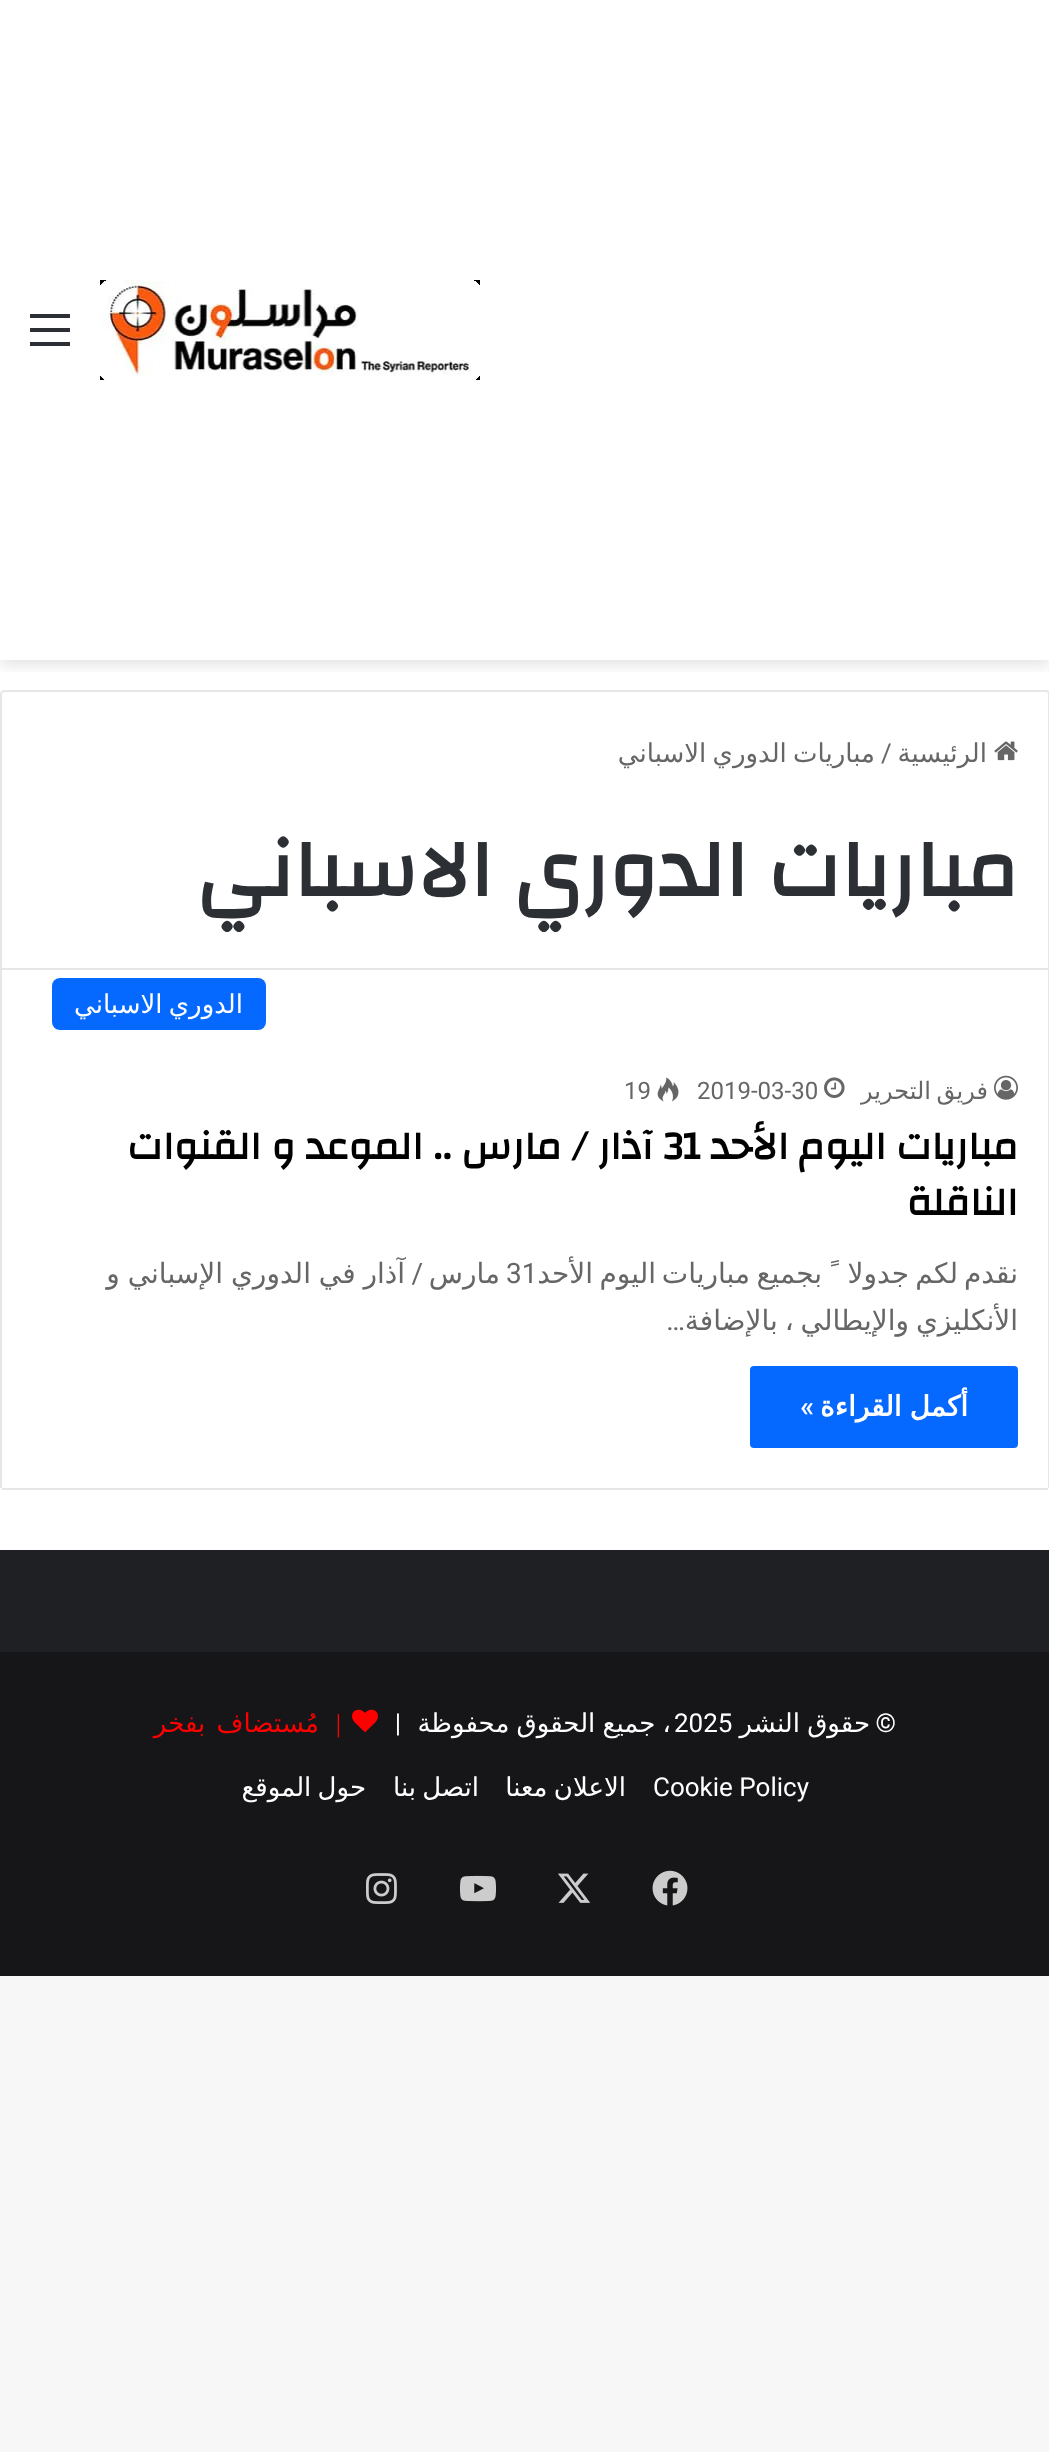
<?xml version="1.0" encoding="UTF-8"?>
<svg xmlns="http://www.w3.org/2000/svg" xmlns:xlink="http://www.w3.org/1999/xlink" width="1049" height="2452">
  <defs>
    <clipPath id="clip1"><rect x="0" y="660" width="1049" height="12" /></clipPath>
  </defs>
  <rect width="100%" height="100%" fill="#f7f7f7" />
  <rect width="1049" height="1550" fill="#ffffff" />
  <g clip-path="url(#clip1)">
    <rect y="6" width="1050" height="660" fill="#000000" fill-opacity="0.1" filter="blur(7px)" />
  </g>
  <image x="100" y="280" width="380" height="100" xlink:href="image1.png" />
  <rect x="30" y="328" width="40" height="4" fill="#2c2f34" />
  <rect x="30" y="314" width="40" height="4" fill="#2c2f34" />
  <rect x="30" y="342" width="40" height="4" fill="#2c2f34" />
  <path d="M 4 691 h 1042 c 1.5 0 3 1.5 3 3 v 275 h -1048 v -275 c 0 -1.5 1.5 -3 3 -3 z" fill="none" stroke="#e6e6e6" stroke-width="2" />
  <image x="994" y="741" width="24" height="20" xlink:href="image2.png" />
  <rect x="1048" y="970" width="1" height="518" fill="#e6e6e6" />
  <rect x="2" y="1488" width="1046" height="2" fill="#e6e6e6" />
  <rect y="970" width="2" height="518" fill="#e6e6e6" />
  <rect x="52" y="978" width="214" height="52" rx="8" fill="#0669ff" />
  <image x="994" y="1075" width="24" height="25" xlink:href="image3.png" />
  <image x="824" y="1077" width="21" height="21" xlink:href="image4.png" />
  <image x="657" y="1077" width="22" height="25" xlink:href="image5.png" />
  <rect x="750" y="1366" width="268" height="82" rx="4" fill="#0669ff" />
  <rect y="1550" width="1049" height="102" fill="#1f2024" />
  <rect y="1652" width="1049" height="324" fill="#161619" />
  <image x="352" y="1709" width="26" height="23" xlink:href="image6.png" />
  <image x="652" y="1870" width="36" height="36" xlink:href="image7.png" />
  <image x="558" y="1873" width="33" height="30" xlink:href="image8.png" />
  <image x="460" y="1875" width="36" height="27" xlink:href="image9.png" />
  <image x="366" y="1873" width="31" height="31" xlink:href="image10.png" />
  <text x="987" y="762" style="font-family: DejaVu Sans; font-size: 26px; direction: rtl; fill: #666666">الرئيسية</text>
  <text x="881" y="762" style="font-family: Roboto; font-size: 26px; fill: #666666">/</text>
  <text x="875" y="762" word-spacing="-2" style="font-family: DejaVu Sans; font-size: 26px; direction: rtl; fill: #666666">مباريات الدوري الاسباني</text>
  <text x="1018" y="896" style="font-family: Changa; font-size: 82px; font-weight: bold; direction: rtl; fill: #2c2f34">مباريات الدوري الاسباني</text>
  <text x="243" y="1013" word-spacing="-2" style="font-family: DejaVu Sans; font-size: 26px; direction: rtl; fill: #ffffff">الدوري الاسباني</text>
  <text x="988" y="1099" word-spacing="-2" style="font-family: DejaVu Sans; font-size: 24px; direction: rtl; fill: #666666">فريق التحرير</text>
  <text x="697" y="1099" style="font-family: Roboto; font-size: 24px; fill: #666666">2019-03-30</text>
  <text x="624" y="1099" style="font-family: Roboto; font-size: 24px; fill: #666666">19</text>
  <text x="1018" y="1159" style="font-family: Changa; font-size: 40px; font-weight: bold; direction: rtl; fill: #000000">مباريات اليوم الأحد</text>
  <text x="663" y="1159" style="font-family: Changa; font-size: 40px; font-weight: bold; fill: #000000">31</text>
  <text x="653" y="1159" style="font-family: Changa; font-size: 40px; font-weight: bold; direction: rtl; fill: #000000">آذار / مارس .. الموعد و القنوات</text>
  <text x="1018" y="1215" style="font-family: Changa; font-size: 40px; font-weight: bold; direction: rtl; fill: #000000">الناقلة</text>
  <text x="1018" y="1283" style="font-family: DejaVu Sans; font-size: 28px; direction: rtl; fill: #666666">نقدم</text>
  <text x="958" y="1283" style="font-family: DejaVu Sans; font-size: 28px; direction: rtl; fill: #666666">لكم</text>
  <text x="909" y="1283" style="font-family: DejaVu Sans; font-size: 28px; direction: rtl; fill: #666666">جدولا</text>
  <text x="828" y="1283" style="font-family: Roboto; font-size: 28px; direction: rtl; fill: #666666">ً</text>
  <text x="822" y="1283" style="font-family: DejaVu Sans; font-size: 28px; direction: rtl; fill: #666666">بجميع</text>
  <text x="750" y="1283" style="font-family: DejaVu Sans; font-size: 28px; direction: rtl; fill: #666666">مباريات</text>
  <text x="656" y="1283" style="font-family: DejaVu Sans; font-size: 28px; direction: rtl; fill: #666666">اليوم</text>
  <text x="593" y="1283" style="font-family: DejaVu Sans; font-size: 28px; direction: rtl; fill: #666666">الأحد</text>
  <text x="506" y="1283" style="font-family: Roboto; font-size: 28px; fill: #666666">31</text>
  <text x="500" y="1283" style="font-family: DejaVu Sans; font-size: 28px; direction: rtl; fill: #666666">مارس</text>
  <text x="423" y="1283" style="font-family: Roboto; font-size: 28px; direction: rtl; fill: #666666">/</text>
  <text x="405" y="1283" word-spacing="-1" style="font-family: DejaVu Sans; font-size: 28px; direction: rtl; fill: #666666">آذار في الدوري الإسباني و</text>
  <text x="1018" y="1330" word-spacing="-2" style="font-family: DejaVu Sans; font-size: 28px; direction: rtl; fill: #666666">الأنكليزي والإيطالي ، بالإضافة</text>
  <text x="685" y="1330" style="font-family: Roboto; font-size: 28px; direction: rtl; fill: #666666">…</text>
  <text x="968" y="1416" word-spacing="-1" style="font-family: DejaVu Sans; font-size: 28px; font-weight: bold; direction: rtl; fill: #ffffff">أكمل القراءة</text>
  <text x="814" y="1416" style="font-family: Roboto; font-size: 28px; font-weight: 600; direction: rtl; fill: #ffffff">»</text>
  <text x="896" y="1732" style="font-family: Roboto; font-size: 26px; direction: rtl; fill: #ffffff">©</text>
  <text x="870" y="1732" word-spacing="-1" style="font-family: DejaVu Sans; font-size: 26px; direction: rtl; fill: #ffffff">حقوق النشر</text>
  <text x="674" y="1732" style="font-family: Roboto; font-size: 26px; fill: #ffffff">2025</text>
  <text x="671" y="1732" word-spacing="-1" style="font-family: DejaVu Sans; font-size: 26px; direction: rtl; fill: #ffffff">، جميع الحقوق محفوظة</text>
  <text x="401" y="1732" style="font-family: Roboto; font-size: 26px; direction: rtl; fill: #ffffff">|</text>
  <text x="341" y="1732" style="font-family: Liberation Serif; font-size: 26px; direction: rtl; fill: #ff0000">|</text>
  <text x="319" y="1732" word-spacing="3" style="font-family: DejaVu Sans; font-size: 26px; direction: rtl; fill: #ff0000">مُستضاف بفخر</text>
  <text x="653" y="1796" style="font-family: Roboto; font-size: 26px; fill: #ffffff">Cookie Policy</text>
  <text x="626" y="1796" word-spacing="-2" style="font-family: DejaVu Sans; font-size: 26px; direction: rtl; fill: #ffffff">الاعلان معنا</text>
  <text x="479" y="1796" word-spacing="-2" style="font-family: DejaVu Sans; font-size: 26px; direction: rtl; fill: #ffffff">اتصل بنا</text>
  <text x="366" y="1796" word-spacing="-2" style="font-family: DejaVu Sans; font-size: 26px; direction: rtl; fill: #ffffff">حول الموقع</text>
</svg>
